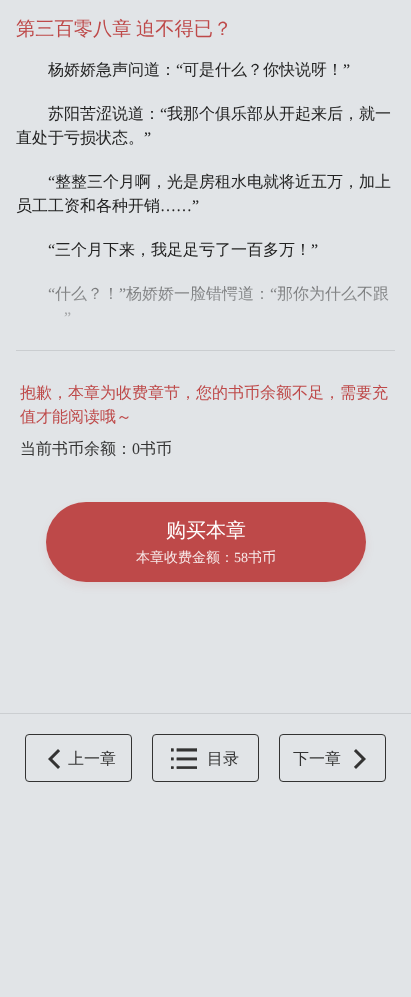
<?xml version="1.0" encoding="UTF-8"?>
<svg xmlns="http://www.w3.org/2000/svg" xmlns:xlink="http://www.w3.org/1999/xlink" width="411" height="997">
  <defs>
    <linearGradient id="g1" gradientUnits="userSpaceOnUse" x1="206" y1="270" x2="206" y2="350"><stop offset="0" stop-color="#e1e4e7" stop-opacity="0.3" /><stop offset="1" stop-color="#e1e4e7" /></linearGradient>
  </defs>
  <rect width="100%" height="100%" fill="#e1e4e7" />
  <rect x="16" y="350" width="379" height="1" fill="#cacdd0" />
  <rect x="46" y="506" width="320" height="80" rx="40" fill="#a42a2a" fill-opacity="0.08" filter="blur(4px)" />
  <rect x="46" y="502" width="320" height="80" rx="40" fill="#be4949" />
  <rect y="713" width="411" height="1" fill="#cbced1" />
  <rect x="25.5" y="734.5" width="106" height="47" rx="3.5" fill="none" stroke="#333333" />
  <image x="48" y="749" width="12" height="20" xlink:href="image1.png" />
  <rect x="152.5" y="734.5" width="106" height="47" rx="3.5" fill="none" stroke="#333333" />
  <image x="171" y="748" width="26" height="21" xlink:href="image2.png" />
  <rect x="279.5" y="734.5" width="106" height="47" rx="3.5" fill="none" stroke="#333333" />
  <image x="354" y="749" width="12" height="20" xlink:href="image3.png" />
  <text x="16" y="35" style="font-family: WenQuanYi Zen Hei; font-size: 19.25px; font-weight: 500; fill: #be4949">第三百零八章</text>
  <text x="136" y="35" style="font-family: WenQuanYi Zen Hei; font-size: 19.25px; font-weight: 500; fill: #be4949">迫不得已？</text>
  <text x="48" y="75" style="font-family: WenQuanYi Zen Hei; font-size: 16px; font-weight: 500; fill: #222222">杨娇娇急声问道：</text>
  <text x="176" y="75" style="font-family: Liberation Serif; font-size: 16px; fill: #222222">“</text>
  <text x="183" y="75" style="font-family: WenQuanYi Zen Hei; font-size: 16px; font-weight: 500; fill: #222222">可是什么？你快说呀！</text>
  <text x="343" y="75" style="font-family: Liberation Serif; font-size: 16px; fill: #222222">”</text>
  <text x="48" y="119" style="font-family: WenQuanYi Zen Hei; font-size: 16px; font-weight: 500; fill: #222222">苏阳苦涩说道：</text>
  <text x="160" y="119" style="font-family: Liberation Serif; font-size: 16px; fill: #222222">“</text>
  <text x="167" y="119" style="font-family: WenQuanYi Zen Hei; font-size: 16px; font-weight: 500; fill: #222222">我那个俱乐部从开起来后，就一</text>
  <text x="16" y="143" style="font-family: WenQuanYi Zen Hei; font-size: 16px; font-weight: 500; fill: #222222">直处于亏损状态。</text>
  <text x="144" y="143" style="font-family: Liberation Serif; font-size: 16px; fill: #222222">”</text>
  <text x="48" y="187" style="font-family: Liberation Serif; font-size: 16px; fill: #222222">“</text>
  <text x="55" y="187" style="font-family: WenQuanYi Zen Hei; font-size: 16px; font-weight: 500; fill: #222222">整整三个月啊，光是房租水电就将近五万，加上</text>
  <text x="16" y="211" style="font-family: WenQuanYi Zen Hei; font-size: 16px; font-weight: 500; fill: #222222">员工工资和各种开销</text>
  <text x="160" y="211" style="font-family: Liberation Serif; font-size: 16px; fill: #222222">……”</text>
  <text x="48" y="255" style="font-family: Liberation Serif; font-size: 16px; fill: #222222">“</text>
  <text x="55" y="255" style="font-family: WenQuanYi Zen Hei; font-size: 16px; font-weight: 500; fill: #222222">三个月下来，我足足亏了一百多万！</text>
  <text x="311" y="255" style="font-family: Liberation Serif; font-size: 16px; fill: #222222">”</text>
  <text x="48" y="299" style="font-family: Liberation Serif; font-size: 16px; fill: #222222">“</text>
  <text x="55" y="299" style="font-family: WenQuanYi Zen Hei; font-size: 16px; font-weight: 500; fill: #222222">什么？！</text>
  <text x="119" y="299" style="font-family: Liberation Serif; font-size: 16px; fill: #222222">”</text>
  <text x="126" y="299" style="font-family: WenQuanYi Zen Hei; font-size: 16px; font-weight: 500; fill: #222222">杨娇娇一脸错愕道：</text>
  <text x="270" y="299" style="font-family: Liberation Serif; font-size: 16px; fill: #222222">“</text>
  <text x="277" y="299" style="font-family: WenQuanYi Zen Hei; font-size: 16px; font-weight: 500; fill: #222222">那你为什么不跟</text>
  <text x="64" y="323" style="font-family: Liberation Serif; font-size: 16px; fill: #222222">”</text>
  <rect x="48" y="285" width="341" height="32" fill="url(#g1)" />
  <text x="20" y="398" style="font-family: WenQuanYi Zen Hei; font-size: 16px; font-weight: 500; fill: #be4949">抱歉，本章为收费章节，您的书币余额不足，需要充</text>
  <text x="20" y="422" style="font-family: WenQuanYi Zen Hei; font-size: 16px; font-weight: 500; fill: #be4949">值才能阅读哦～</text>
  <text x="20" y="454" style="font-family: WenQuanYi Zen Hei; font-size: 16px; font-weight: 500; fill: #333333">当前书币余额：</text>
  <text x="132" y="454" style="font-family: Liberation Serif; font-size: 16px; fill: #333333">0</text>
  <text x="140" y="454" style="font-family: WenQuanYi Zen Hei; font-size: 16px; font-weight: 500; fill: #333333">书币</text>
  <text x="166" y="537" style="font-family: WenQuanYi Zen Hei; font-size: 20px; font-weight: 500; fill: #ffffff">购买本章</text>
  <text x="136" y="562" style="font-family: WenQuanYi Zen Hei; font-size: 14px; font-weight: 500; fill: #f7e9e9">本章收费金额：</text>
  <text x="234" y="562" style="font-family: Liberation Serif; font-size: 14px; fill: #f7e9e9">58</text>
  <text x="248" y="562" style="font-family: WenQuanYi Zen Hei; font-size: 14px; font-weight: 500; fill: #f7e9e9">书币</text>
  <text x="68" y="764" style="font-family: WenQuanYi Zen Hei; font-size: 16px; font-weight: 500; fill: #333333">上一章</text>
  <text x="207" y="764" style="font-family: WenQuanYi Zen Hei; font-size: 16px; font-weight: 500; fill: #333333">目录</text>
  <text x="293" y="764" style="font-family: WenQuanYi Zen Hei; font-size: 16px; font-weight: 500; fill: #333333">下一章</text>
</svg>
